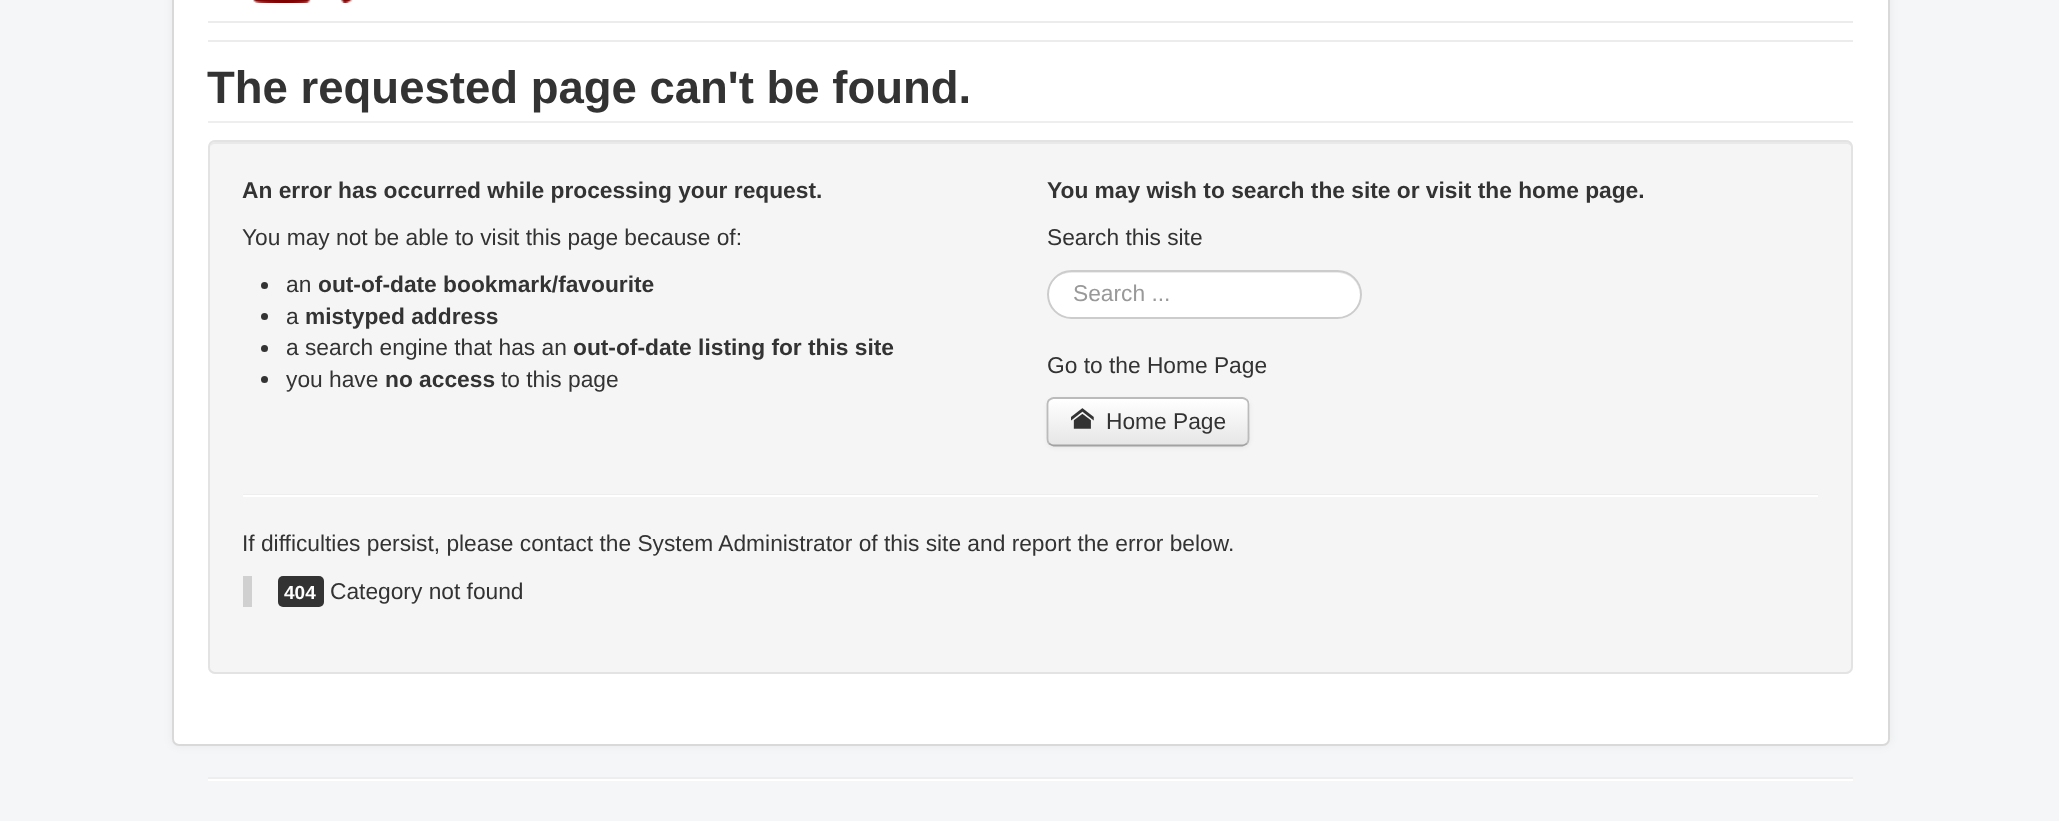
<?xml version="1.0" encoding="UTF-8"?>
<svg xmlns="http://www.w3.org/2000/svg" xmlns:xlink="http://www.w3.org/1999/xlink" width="2059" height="821">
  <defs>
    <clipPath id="clip1"><rect x="1047" y="397" width="203" height="49" rx="7" /></clipPath>
    <linearGradient id="g1" gradientUnits="userSpaceOnUse" x1="1148" y1="399" x2="1148" y2="445"><stop offset="0" stop-color="#ffffff" /><stop offset="1" stop-color="#e6e6e6" /></linearGradient>
  </defs>
  <rect width="100%" height="100%" fill="#f4f6f7" />
  <rect x="172" y="-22" width="1718" height="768" rx="7" fill="#000000" fill-opacity="0.05" filter="blur(5px)" />
  <rect x="172" y="-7" width="1718" height="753" rx="7" fill="#ffffff" />
  <rect x="173" y="-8" width="1716" height="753" rx="6" fill="none" stroke="#000000" stroke-opacity="0.15" stroke-width="2" />
  <image x="253" y="0" width="100" height="3" xlink:href="image1.png" />
  <rect x="208" y="21" width="1645" height="2" fill="#ececec" />
  <rect x="208" y="40" width="1645" height="2" fill="#ececec" />
  <rect x="208" y="121" width="1645" height="2" fill="#eeeeee" />
  <rect x="208" y="140" width="1645" height="534" rx="7" fill="#f5f5f5" />
  <path d="M 215 144 h 1631 c 3 0 6 2 6 5 c 0 -3 -1 -7 -5 -7 h -1632 c -4 0 -5 4 -5 7 c 0 -3 2 -5 5 -5 z" fill="#e9e9e9" />
  <rect x="209" y="141" width="1643" height="532" rx="6" fill="none" stroke="#e3e3e3" stroke-width="2" />
  <circle cx="264.5" cy="285.5" r="3.5" fill="#333333" />
  <circle cx="264.5" cy="316.5" r="3.5" fill="#333333" />
  <circle cx="264.5" cy="348.5" r="3.5" fill="#333333" />
  <circle cx="264.5" cy="379.5" r="3.5" fill="#333333" />
  <rect x="1047" y="270" width="315" height="49" rx="24.5" fill="#ffffff" />
  <path d="M 1071 273 h 266 c 13 0 22 9 23 22 v -1 c 0 -13 -10 -23 -23 -23 h -266 c -13 0 -23 10 -23 23 v 1 c 1 -13 10 -22 23 -22 z" fill="#ececec" />
  <rect x="1048" y="271" width="313" height="47" rx="23.5" fill="none" stroke="#cccccc" stroke-width="2" />
  <rect x="1047" y="399" width="203" height="49" rx="7" fill="#000000" fill-opacity="0.05" filter="blur(2px)" />
  <rect x="1047" y="397" width="203" height="49" rx="7" fill="#f5f5f5" />
  <g clip-path="url(#clip1)">
    <rect x="1047" y="399" width="203" height="46" fill="url(#g1)" />
  </g>
  <path d="M 1247 443.5 c -1.5 1 -3 2 -4.5 2 h -189 c -1.5 0 -3 -1 -4.5 -2" fill="none" stroke="#a2a2a2" stroke-width="1.8" />
  <path d="M 1049 443.5 c -1 -1 -1.5 -2.5 -1.5 -4.5 v -35 c 0 -1.5 0.5 -3 1.5 -4 c 1.5 -1 3 -2 4.5 -2 h 189 c 1.5 0 3 1 4.5 2 c 1 1 1.5 2.5 1.5 4 v 35 c 0 2 -0.5 3.5 -1.5 4.5" fill="none" stroke="#bbbbbb" stroke-width="1.8" />
  <image x="1071" y="408" width="23" height="21" xlink:href="image2.png" />
  <rect x="243" y="494" width="1575" height="1" fill="#eeeeee" />
  <rect x="243" y="495" width="1575" height="2" fill="#ffffff" />
  <rect x="243" y="576" width="9" height="31" fill="#d0d0d0" />
  <rect x="278" y="576" width="46" height="31" rx="5" fill="#333333" />
  <rect x="208" y="777" width="1645" height="2" fill="#eeeeee" />
  <rect x="208" y="779" width="1645" height="2" fill="#ffffff" />
  <text x="207" y="103" style="font-family: Liberation Sans; font-size: 45.5px; font-weight: bold; fill: #333333">The requested page can't be found.</text>
  <text x="242" y="198" style="font-family: Liberation Sans; font-size: 22.75px; font-weight: bold; fill: #333333">An error has occurred while processing your request.</text>
  <text x="242" y="245" style="font-family: Liberation Sans; font-size: 22.75px; fill: #333333">You may not be able to visit this page because of:</text>
  <text x="286" y="292" style="font-family: Liberation Sans; font-size: 22.75px; fill: #333333">an</text>
  <text x="318" y="292" style="font-family: Liberation Sans; font-size: 22.75px; font-weight: bold; fill: #333333">out-of-date bookmark/favourite</text>
  <text x="286" y="324" style="font-family: Liberation Sans; font-size: 22.75px; fill: #333333">a</text>
  <text x="305" y="324" style="font-family: Liberation Sans; font-size: 22.75px; font-weight: bold; fill: #333333">mistyped address</text>
  <text x="286" y="355" style="font-family: Liberation Sans; font-size: 22.75px; fill: #333333">a search engine that has an</text>
  <text x="573" y="355" style="font-family: Liberation Sans; font-size: 22.75px; font-weight: bold; fill: #333333">out-of-date listing for this site</text>
  <text x="286" y="387" style="font-family: Liberation Sans; font-size: 22.75px; fill: #333333">you have</text>
  <text x="385" y="387" style="font-family: Liberation Sans; font-size: 22.75px; font-weight: bold; fill: #333333">no access</text>
  <text x="501" y="387" style="font-family: Liberation Sans; font-size: 22.75px; fill: #333333">to this page</text>
  <text x="1047" y="198" style="font-family: Liberation Sans; font-size: 22.75px; font-weight: bold; fill: #333333">You may wish to search the site or visit the home page.</text>
  <text x="1047" y="245" style="font-family: Liberation Sans; font-size: 22.75px; fill: #333333">Search this site</text>
  <text x="1073" y="301" style="font-family: Liberation Sans; font-size: 22.75px; fill: #999999">Search ...</text>
  <text x="1047" y="373" style="font-family: Liberation Sans; font-size: 22.75px; fill: #333333">Go to the Home Page</text>
  <text x="1106" y="429" style="font-family: Liberation Sans; font-size: 22.75px; fill: #333333">Home Page</text>
  <text x="242" y="551" style="font-family: Liberation Sans; font-size: 22.75px; fill: #333333">If difficulties persist, please contact the System Administrator of this site and report the error below.</text>
  <text x="284" y="599" style="font-family: Liberation Sans; font-size: 19px; font-weight: bold; fill: #ffffff">404</text>
  <text x="330" y="599" style="font-family: Liberation Sans; font-size: 22.75px; fill: #333333">Category not found</text>
</svg>
